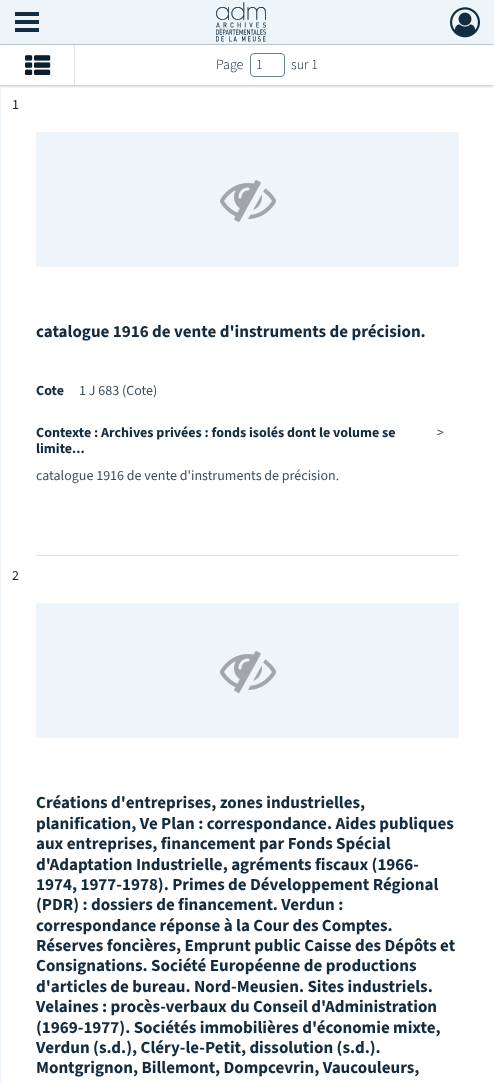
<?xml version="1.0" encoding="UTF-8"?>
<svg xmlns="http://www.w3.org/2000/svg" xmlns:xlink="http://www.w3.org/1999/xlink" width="494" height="1083">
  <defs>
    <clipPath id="clip1"><path d="M 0 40 h 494 v 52 h -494 z m 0 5 h 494 v 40 h -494 z" clip-rule="evenodd" /></clipPath>
  </defs>
  <rect width="100%" height="100%" fill="#ffffff" />
  <rect width="494" height="44" fill="#eef5fa" />
  <rect y="44" width="494" height="1" fill="#bfcdd7" />
  <rect x="15" y="12" width="24" height="4" fill="#142c3f" />
  <rect x="15" y="20" width="24" height="4" fill="#142c3f" />
  <rect x="15" y="28" width="24" height="4" fill="#142c3f" />
  <image x="216" y="2" width="50" height="40" xlink:href="image1.png" />
  <image x="450" y="7" width="30" height="31" xlink:href="image2.png" />
  <rect y="85" width="1" height="998" fill="#eef5fa" />
  <g clip-path="url(#clip1)">
    <rect y="46" width="494" height="40" fill="#000000" fill-opacity="0.25" filter="blur(1.5px)" />
  </g>
  <rect x="74" y="45" width="1" height="40" fill="#dfe1e2" />
  <image x="25" y="55" width="26" height="20" xlink:href="image3.png" />
  <rect x="250.5" y="53.5" width="34" height="23" rx="3.5" fill="none" stroke="#698296" />
  <rect x="36" y="555" width="423" height="1" fill="#dfe1e2" />
  <rect x="36" y="132" width="423" height="135" fill="#eef5fa" />
  <image x="220" y="180" width="56" height="42" xlink:href="image4.png" />
  <rect x="36" y="603" width="423" height="135" fill="#eef5fa" />
  <image x="220" y="651" width="56" height="42" xlink:href="image4.png" />
  <text x="216" y="69" style="font-family: 'Source Sans 3'; font-size: 14px; font-weight: 300; fill: #091f30">Page</text>
  <text x="256" y="69" style="font-family: 'Source Sans 3'; font-size: 14px; font-weight: 300; fill: #091f30">1</text>
  <text x="291" y="69" style="font-family: 'Source Sans 3'; font-size: 14px; font-weight: 300; fill: #091f30">sur 1</text>
  <text x="12" y="109" style="font-family: 'Source Sans 3'; font-size: 14px; fill: #212529">1</text>
  <text x="36" y="337" style="font-family: 'Source Sans 3'; font-size: 17px; font-weight: bold; fill: #142c3f">catalogue 1916 de vente d'instruments de précision.</text>
  <text x="36" y="395" style="font-family: 'Source Sans 3'; font-size: 14px; font-weight: bold; fill: #142c3f">Cote</text>
  <text x="79" y="395" style="font-family: 'Source Sans 3'; font-size: 14px; fill: #3c4f5f">1 J 683 (Cote)</text>
  <text x="36" y="437" style="font-family: 'Source Sans 3'; font-size: 14px; font-weight: bold; fill: #142c3f">Contexte : Archives privées : fonds isolés dont le volume se</text>
  <text x="36" y="453" style="font-family: 'Source Sans 3'; font-size: 14px; font-weight: bold; fill: #142c3f">limite...</text>
  <text x="437" y="437" style="font-family: 'Source Sans 3'; font-size: 14px; fill: #3c4f5f">&gt;</text>
  <text x="36" y="480" style="font-family: 'Source Sans 3'; font-size: 14px; fill: #3c4f5f">catalogue 1916 de vente d'instruments de précision.</text>
  <text x="12" y="580" style="font-family: 'Source Sans 3'; font-size: 14px; fill: #212529">2</text>
  <text x="36" y="808" style="font-family: 'Source Sans 3'; font-size: 17px; font-weight: bold; fill: #142c3f">Créations d'entreprises, zones industrielles,</text>
  <text x="36" y="829" style="font-family: 'Source Sans 3'; font-size: 17px; font-weight: bold; fill: #142c3f">planification, Ve Plan : correspondance. Aides publiques</text>
  <text x="36" y="849" style="font-family: 'Source Sans 3'; font-size: 17px; font-weight: bold; fill: #142c3f">aux entreprises, financement par Fonds Spécial</text>
  <text x="36" y="870" style="font-family: 'Source Sans 3'; font-size: 17px; font-weight: bold; fill: #142c3f">d'Adaptation Industrielle, agréments fiscaux (1966-</text>
  <text x="36" y="890" style="font-family: 'Source Sans 3'; font-size: 17px; font-weight: bold; fill: #142c3f">1974, 1977-1978). Primes de Développement Régional</text>
  <text x="36" y="910" style="font-family: 'Source Sans 3'; font-size: 17px; font-weight: bold; fill: #142c3f">(PDR) : dossiers de financement. Verdun :</text>
  <text x="36" y="931" style="font-family: 'Source Sans 3'; font-size: 17px; font-weight: bold; fill: #142c3f">correspondance réponse à la Cour des Comptes.</text>
  <text x="36" y="951" style="font-family: 'Source Sans 3'; font-size: 17px; font-weight: bold; fill: #142c3f">Réserves foncières, Emprunt public Caisse des Dépôts et</text>
  <text x="36" y="971" style="font-family: 'Source Sans 3'; font-size: 17px; font-weight: bold; fill: #142c3f">Consignations. Société Européenne de productions</text>
  <text x="36" y="992" style="font-family: 'Source Sans 3'; font-size: 17px; font-weight: bold; fill: #142c3f">d'articles de bureau. Nord-Meusien. Sites industriels.</text>
  <text x="36" y="1012" style="font-family: 'Source Sans 3'; font-size: 17px; font-weight: bold; fill: #142c3f">Velaines : procès-verbaux du Conseil d'Administration</text>
  <text x="36" y="1033" style="font-family: 'Source Sans 3'; font-size: 17px; font-weight: bold; fill: #142c3f">(1969-1977). Sociétés immobilières d'économie mixte,</text>
  <text x="36" y="1053" style="font-family: 'Source Sans 3'; font-size: 17px; font-weight: bold; fill: #142c3f">Verdun (s.d.), Cléry-le-Petit, dissolution (s.d.).</text>
  <text x="36" y="1073" style="font-family: 'Source Sans 3'; font-size: 17px; font-weight: bold; fill: #142c3f">Montgrignon, Billemont, Dompcevrin, Vaucouleurs,</text>
</svg>
